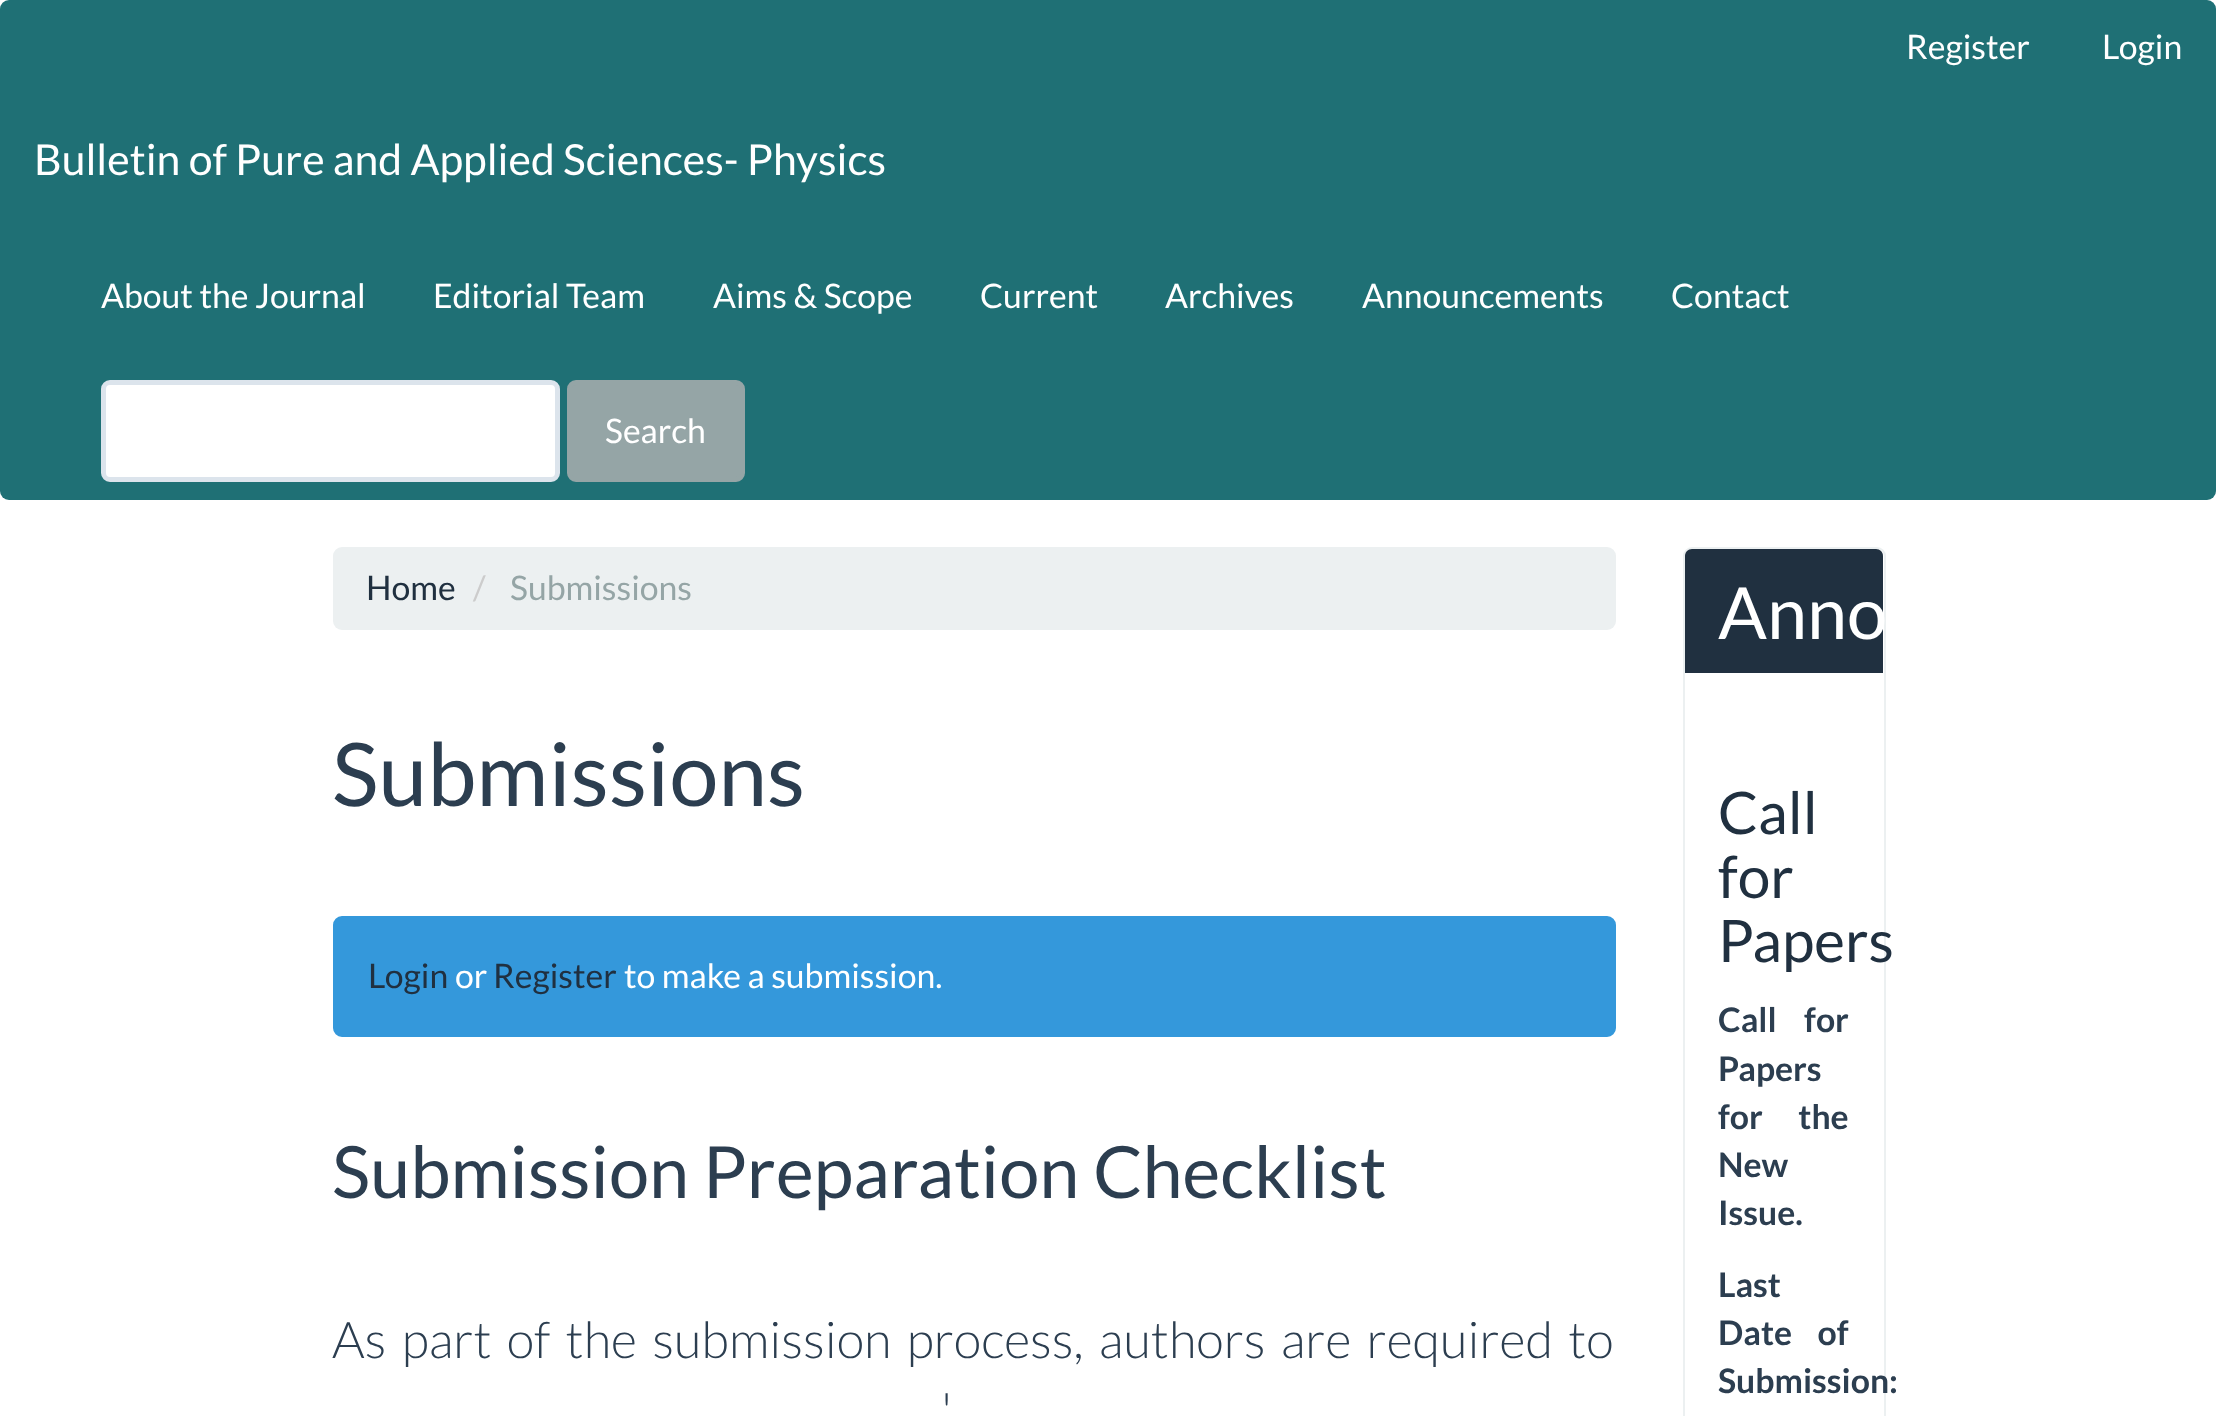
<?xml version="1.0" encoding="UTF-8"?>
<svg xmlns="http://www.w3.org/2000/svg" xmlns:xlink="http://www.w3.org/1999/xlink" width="2216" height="1416">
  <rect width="100%" height="100%" fill="#ffffff" />
  <rect width="2216" height="500" rx="9" fill="#1f7075" />
  <rect x="103.5" y="382.5" width="454" height="97" rx="6.5" fill="#ffffff" stroke="#dce4ec" stroke-width="5" />
  <rect x="569.5" y="382.5" width="173" height="97" rx="6.5" fill="#95a5a6" stroke="#95a5a6" stroke-width="5" />
  <rect x="333" y="547" width="1283" height="83" rx="9" fill="#ecf0f1" />
  <rect x="334" y="917" width="1281" height="119" rx="8" fill="#3498db" stroke="#3498db" stroke-width="2" />
  <rect x="1684" y="548" width="201" height="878" rx="8" fill="none" stroke="#ecf0f1" stroke-width="2" />
  <path d="M 1692 549 h 184 c 4 0 7 3 7 7 v 119 h -198 v -119 c 0 -4 3 -7 7 -7 z" fill="#203040" />
  <rect x="1685" y="673" width="198" height="2" fill="#ffffff" />
  <text x="1906" y="59" style="font-family: Lato; font-size: 33.75px; fill: #ffffff">Register</text>
  <text x="2102" y="59" style="font-family: Lato; font-size: 33.75px; fill: #ffffff">Login</text>
  <text x="34" y="175" style="font-family: Lato; font-size: 42.75px; fill: #ffffff">Bulletin of Pure and Applied Sciences- Physics</text>
  <text x="101" y="308" style="font-family: Lato; font-size: 33.75px; fill: #ffffff">About the Journal</text>
  <text x="433" y="308" style="font-family: Lato; font-size: 33.75px; fill: #ffffff">Editorial Team</text>
  <text x="713" y="308" style="font-family: Lato; font-size: 33.75px; fill: #ffffff">Aims &amp; Scope</text>
  <text x="980" y="308" style="font-family: Lato; font-size: 33.75px; fill: #ffffff">Current</text>
  <text x="1165" y="308" style="font-family: Lato; font-size: 33.75px; fill: #ffffff">Archives</text>
  <text x="1362" y="308" style="font-family: Lato; font-size: 33.75px; fill: #ffffff">Announcements</text>
  <text x="1671" y="308" style="font-family: Lato; font-size: 33.75px; fill: #ffffff">Contact</text>
  <text x="605" y="443" style="font-family: Lato; font-size: 33.75px; fill: #ffffff">Search</text>
  <text x="366" y="600" style="font-family: Lato; font-size: 33.75px; fill: #203040">Home</text>
  <text x="473" y="600" style="font-family: Lato; font-size: 33.75px; fill: #cccccc">/</text>
  <text x="510" y="600" style="font-family: Lato; font-size: 33.75px; fill: #95a5a6">Submissions</text>
  <text x="332" y="806" style="font-family: Lato; font-size: 87.75px; fill: #2c3e50">Submissions</text>
  <text x="368" y="988" style="font-family: Lato; font-size: 33.75px; fill: #203040">Login</text>
  <text x="455" y="988" style="font-family: Lato; font-size: 33.75px; fill: #ffffff">or</text>
  <text x="493" y="988" style="font-family: Lato; font-size: 33.75px; fill: #203040">Register</text>
  <text x="624" y="988" style="font-family: Lato; font-size: 33.75px; fill: #ffffff">to make a submission.</text>
  <text x="332" y="1198" style="font-family: Lato; font-size: 72px; fill: #2c3e50">Submission Preparation Checklist</text>
  <text x="332" y="1358" word-spacing="5.5" style="font-family: Lato; font-size: 50.6px; font-weight: 300; fill: #2c3e50">As part of the submission process, authors are required to</text>
  <text x="941" y="1429" word-spacing="18" style="font-family: Lato; font-size: 50.6px; font-weight: 300; fill: #2c3e50">'</text>
  <text x="1718" y="639" style="font-family: Lato; font-size: 72px; fill: #ffffff">Anno</text>
  <text x="1718" y="834" style="font-family: Lato; font-size: 58.5px; fill: #203040">Call</text>
  <text x="1718" y="898" style="font-family: Lato; font-size: 58.5px; fill: #203040">for</text>
  <text x="1718" y="962" style="font-family: Lato; font-size: 58.5px; fill: #203040">Papers</text>
  <text x="1718" y="1032" word-spacing="21" style="font-family: Lato; font-size: 33.75px; font-weight: bold; fill: #2c3e50">Call for</text>
  <text x="1718" y="1081" style="font-family: Lato; font-size: 33.75px; font-weight: bold; fill: #2c3e50">Papers</text>
  <text x="1718" y="1129" word-spacing="29" style="font-family: Lato; font-size: 33.75px; font-weight: bold; fill: #2c3e50">for the</text>
  <text x="1718" y="1177" style="font-family: Lato; font-size: 33.75px; font-weight: bold; fill: #2c3e50">New</text>
  <text x="1718" y="1225" style="font-family: Lato; font-size: 33.75px; font-weight: bold; fill: #2c3e50">Issue.</text>
  <text x="1718" y="1297" style="font-family: Lato; font-size: 33.75px; font-weight: bold; fill: #2c3e50">Last</text>
  <text x="1718" y="1345" word-spacing="19" style="font-family: Lato; font-size: 33.75px; font-weight: bold; fill: #2c3e50">Date of</text>
  <text x="1718" y="1393" style="font-family: Lato; font-size: 33.75px; font-weight: bold; fill: #2c3e50">Submission:</text>
</svg>
